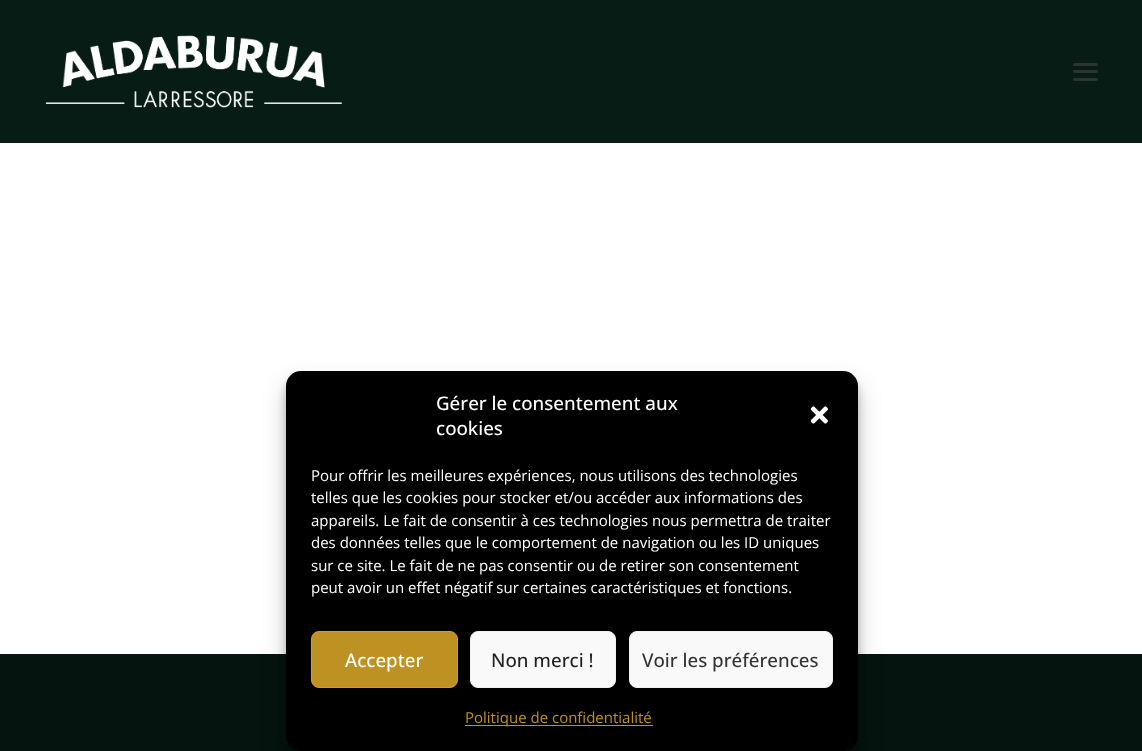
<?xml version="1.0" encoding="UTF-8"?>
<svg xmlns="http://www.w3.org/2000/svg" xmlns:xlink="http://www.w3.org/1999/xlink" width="1142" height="751">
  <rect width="100%" height="100%" fill="#ffffff" />
  <rect width="1142" height="143" fill="#071c15" />
  <image x="45" y="35" width="297" height="73" xlink:href="image1.png" />
  <rect x="1073" y="70" width="25" height="3" rx="1.5" fill="#303133" />
  <rect x="1073" y="63" width="25" height="3" rx="1.5" fill="#303133" />
  <rect x="1073" y="78" width="25" height="3" rx="1.5" fill="#303133" />
  <rect y="654" width="1142" height="97" fill="#05140f" />
  <rect x="286" y="379" width="572" height="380" rx="15" fill="#000000" fill-opacity="0.23" filter="blur(4px)" />
  <rect x="286" y="384" width="572" height="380" rx="15" fill="#000000" fill-opacity="0.19" filter="blur(12.5px)" />
  <rect x="286" y="371" width="572" height="380" rx="15" fill="#000000" />
  <image x="810" y="406" width="18" height="18" xlink:href="image2.png" />
  <rect x="311.5" y="631.5" width="146" height="56" rx="7.5" fill="#be9123" stroke="#dd9933" />
  <rect x="470.5" y="631.5" width="145" height="56" rx="7.5" fill="#f9f9f9" stroke="#f2f2f2" />
  <rect x="629.5" y="631.5" width="203" height="56" rx="7.5" fill="#f9f9f9" stroke="#f2f2f2" />
  <rect x="465" y="725" width="188" height="1" fill="#be9123" />
  <text x="436" y="410" style="font-family: Open Sans; font-size: 18.75px; font-weight: 500; fill: #ffffff">Gérer le consentement aux</text>
  <text x="436" y="435" style="font-family: Open Sans; font-size: 18.75px; font-weight: 500; fill: #ffffff">cookies</text>
  <text x="311" y="481" style="font-family: Open Sans; font-size: 15px; fill: #ffffff">Pour offrir les meilleures expériences, nous utilisons des technologies</text>
  <text x="311" y="503" style="font-family: Open Sans; font-size: 15px; fill: #ffffff">telles que les cookies pour stocker et/ou accéder aux informations des</text>
  <text x="311" y="526" style="font-family: Open Sans; font-size: 15px; fill: #ffffff">appareils. Le fait de consentir à ces technologies nous permettra de traiter</text>
  <text x="311" y="548" style="font-family: Open Sans; font-size: 15px; fill: #ffffff">des données telles que le comportement de navigation ou les ID uniques</text>
  <text x="311" y="571" style="font-family: Open Sans; font-size: 15px; fill: #ffffff">sur ce site. Le fait de ne pas consentir ou de retirer son consentement</text>
  <text x="311" y="593" style="font-family: Open Sans; font-size: 15px; fill: #ffffff">peut avoir un effet négatif sur certaines caractéristiques et fonctions.</text>
  <text x="345" y="667" style="font-family: Open Sans; font-size: 18.75px; font-weight: 500; fill: #ffffff">Accepter</text>
  <text x="491" y="667" style="font-family: Open Sans; font-size: 18.75px; font-weight: 500; fill: #222222">Non merci !</text>
  <text x="642" y="667" style="font-family: Open Sans; font-size: 18.75px; font-weight: 500; fill: #333333">Voir les préférences</text>
  <text x="465" y="723" style="font-family: Open Sans; font-size: 15px; fill: #be9123">Politique de confidentialité</text>
</svg>
